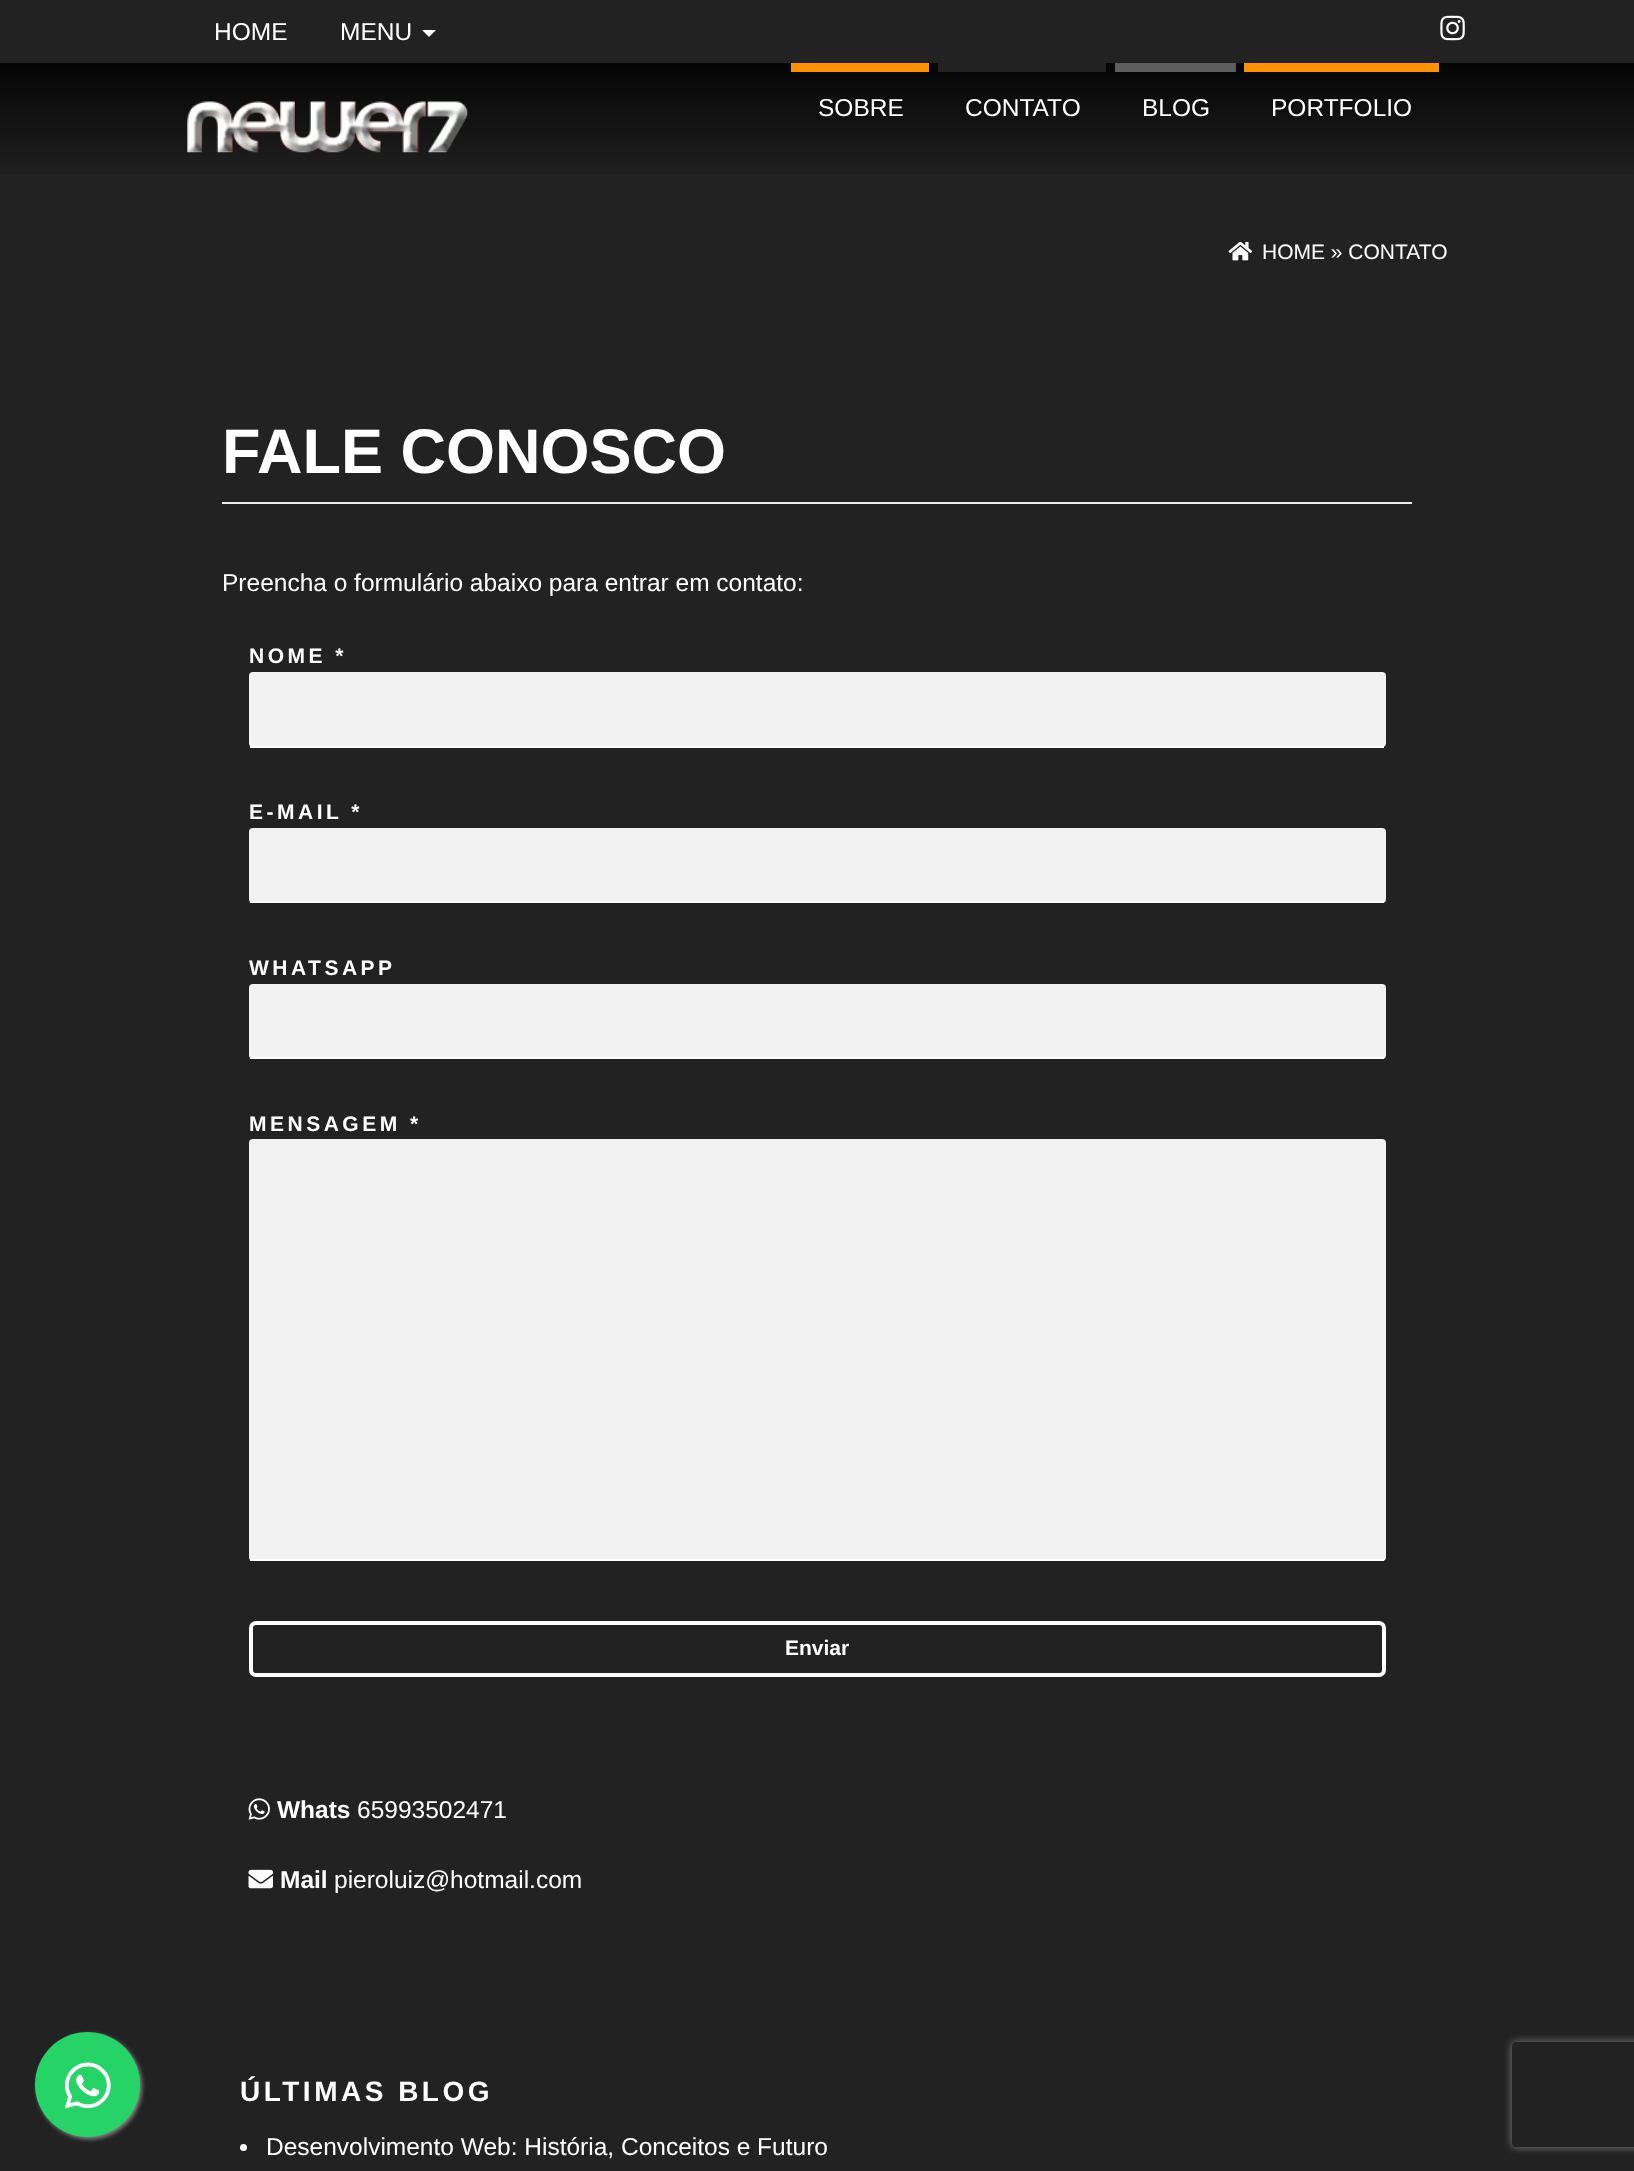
<?xml version="1.0" encoding="UTF-8"?>
<svg xmlns="http://www.w3.org/2000/svg" xmlns:xlink="http://www.w3.org/1999/xlink" width="1634" height="2171">
  <defs>
    <linearGradient id="g1" gradientUnits="userSpaceOnUse" x1="817" y1="63" x2="817" y2="186"><stop offset="0" stop-color="#050505" /><stop offset="1" stop-color="#222222" /></linearGradient>
    <clipPath id="clip1"><path d="M 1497 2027 h 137 v 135 h -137 z m 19 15 h 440 c 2 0 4 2 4 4 v 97 c 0 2 -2 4 -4 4 h -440 c -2 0 -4 -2 -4 -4 v -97 c 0 -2 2 -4 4 -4 z" clip-rule="evenodd" /></clipPath>
  </defs>
  <rect width="100%" height="100%" fill="#222222" />
  <path d="M 422 30 h 14 l -7 7 z" fill="#ffffff" />
  <image x="1440" y="15" width="25" height="26" xlink:href="image1.png" />
  <rect y="63" width="1634" height="112" fill="url(#g1)" />
  <image x="187" y="101" width="281" height="52" xlink:href="image2.png" />
  <rect x="791" y="63" width="138" height="9" fill="#ff9100" />
  <rect x="938" y="63" width="168" height="9" fill="#222222" />
  <rect x="1115" y="63" width="121" height="9" fill="#5e5e5e" />
  <rect x="1244" y="63" width="195" height="9" fill="#ff9100" />
  <rect x="37" y="2034" width="105" height="105" rx="52.5" fill="#888888" filter="blur(2px)" />
  <circle cx="87.5" cy="2084.5" r="52.5" fill="#25d366" />
  <image x="64" y="2062" width="47" height="47" xlink:href="image3.png" />
  <image x="1228" y="241" width="25" height="20" xlink:href="image4.png" />
  <rect x="222" y="502" width="1190" height="2" fill="#eeeeee" />
  <rect x="249" y="672" width="1137" height="75" rx="4" fill="#f2f2f2" />
  <rect x="250" y="746" width="1134" height="2" fill="#ffffff" />
  <rect x="249" y="828" width="1137" height="75" rx="4" fill="#f2f2f2" />
  <rect x="250" y="901" width="1134" height="2" fill="#ffffff" />
  <rect x="249" y="984" width="1137" height="75" rx="4" fill="#f2f2f2" />
  <rect x="250" y="1057" width="1134" height="2" fill="#ffffff" />
  <rect x="249" y="1139" width="1137" height="422" rx="4" fill="#f2f2f2" />
  <rect x="250" y="1559" width="1134" height="2" fill="#ffffff" />
  <rect x="251" y="1623" width="1133" height="52" rx="5" fill="none" stroke="#ffffff" stroke-width="4" />
  <image x="248" y="1798" width="22" height="22" xlink:href="image5.png" />
  <image x="248" y="1869" width="25" height="20" xlink:href="image6.png" />
  <circle cx="243.5" cy="2147.5" r="3.5" fill="#ffffff" />
  <g clip-path="url(#clip1)">
    <rect x="1512" y="2042" width="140" height="105" rx="4" fill="#808080" filter="blur(4.5px)" />
  </g>
  <text x="214" y="40" style="font-family: Liberation Sans; font-size: 24.5px; fill: #ffffff">HOME</text>
  <text x="340" y="40" style="font-family: Liberation Sans; font-size: 24.5px; fill: #ffffff">MENU</text>
  <text x="818" y="116" style="font-family: Liberation Sans; font-size: 24.5px; fill: #ffffff">SOBRE</text>
  <text x="965" y="116" style="font-family: Liberation Sans; font-size: 24.5px; fill: #ffffff">CONTATO</text>
  <text x="1142" y="116" style="font-family: Liberation Sans; font-size: 24.5px; fill: #ffffff">BLOG</text>
  <text x="1271" y="116" style="font-family: Liberation Sans; font-size: 24.5px; fill: #ffffff">PORTFOLIO</text>
  <text x="1262" y="259" style="font-family: Liberation Sans; font-size: 21px; fill: #ffffff">HOME » CONTATO</text>
  <text x="222" y="473" style="font-family: Liberation Sans; font-size: 63px; font-weight: bold; fill: #ffffff">FALE CONOSCO</text>
  <text x="222" y="591" style="font-family: Liberation Sans; font-size: 24.5px; fill: #ffffff">Preencha o formulário abaixo para entrar em contato:</text>
  <text x="249" y="663" style="font-family: Liberation Sans; font-size: 21px; font-weight: bold; letter-spacing: 3.5px; fill: #ffffff">NOME *</text>
  <text x="249" y="819" style="font-family: Liberation Sans; font-size: 21px; font-weight: bold; letter-spacing: 3.5px; fill: #ffffff">E-MAIL *</text>
  <text x="249" y="975" style="font-family: Liberation Sans; font-size: 21px; font-weight: bold; letter-spacing: 3.5px; fill: #ffffff">WHATSAPP</text>
  <text x="249" y="1131" style="font-family: Liberation Sans; font-size: 21px; font-weight: bold; letter-spacing: 3.5px; fill: #ffffff">MENSAGEM *</text>
  <text x="785" y="1655" style="font-family: Liberation Sans; font-size: 21px; font-weight: bold; fill: #ffffff">Enviar</text>
  <text x="277" y="1818" style="font-family: Liberation Sans; font-size: 24.5px; font-weight: bold; fill: #ffffff">Whats</text>
  <text x="357" y="1818" style="font-family: Liberation Sans; font-size: 24.5px; fill: #ffffff">65993502471</text>
  <text x="280" y="1888" style="font-family: Liberation Sans; font-size: 24.5px; font-weight: bold; fill: #ffffff">Mail</text>
  <text x="334" y="1888" style="font-family: Liberation Sans; font-size: 24.5px; fill: #ffffff">pieroluiz@hotmail.com</text>
  <text x="240" y="2101" style="font-family: Liberation Sans; font-size: 28px; font-weight: bold; letter-spacing: 3.5px; fill: #ffffff">ÚLTIMAS BLOG</text>
  <text x="266" y="2155" style="font-family: Liberation Sans; font-size: 24.5px; fill: #ffffff">Desenvolvimento Web: História, Conceitos e Futuro</text>
</svg>
